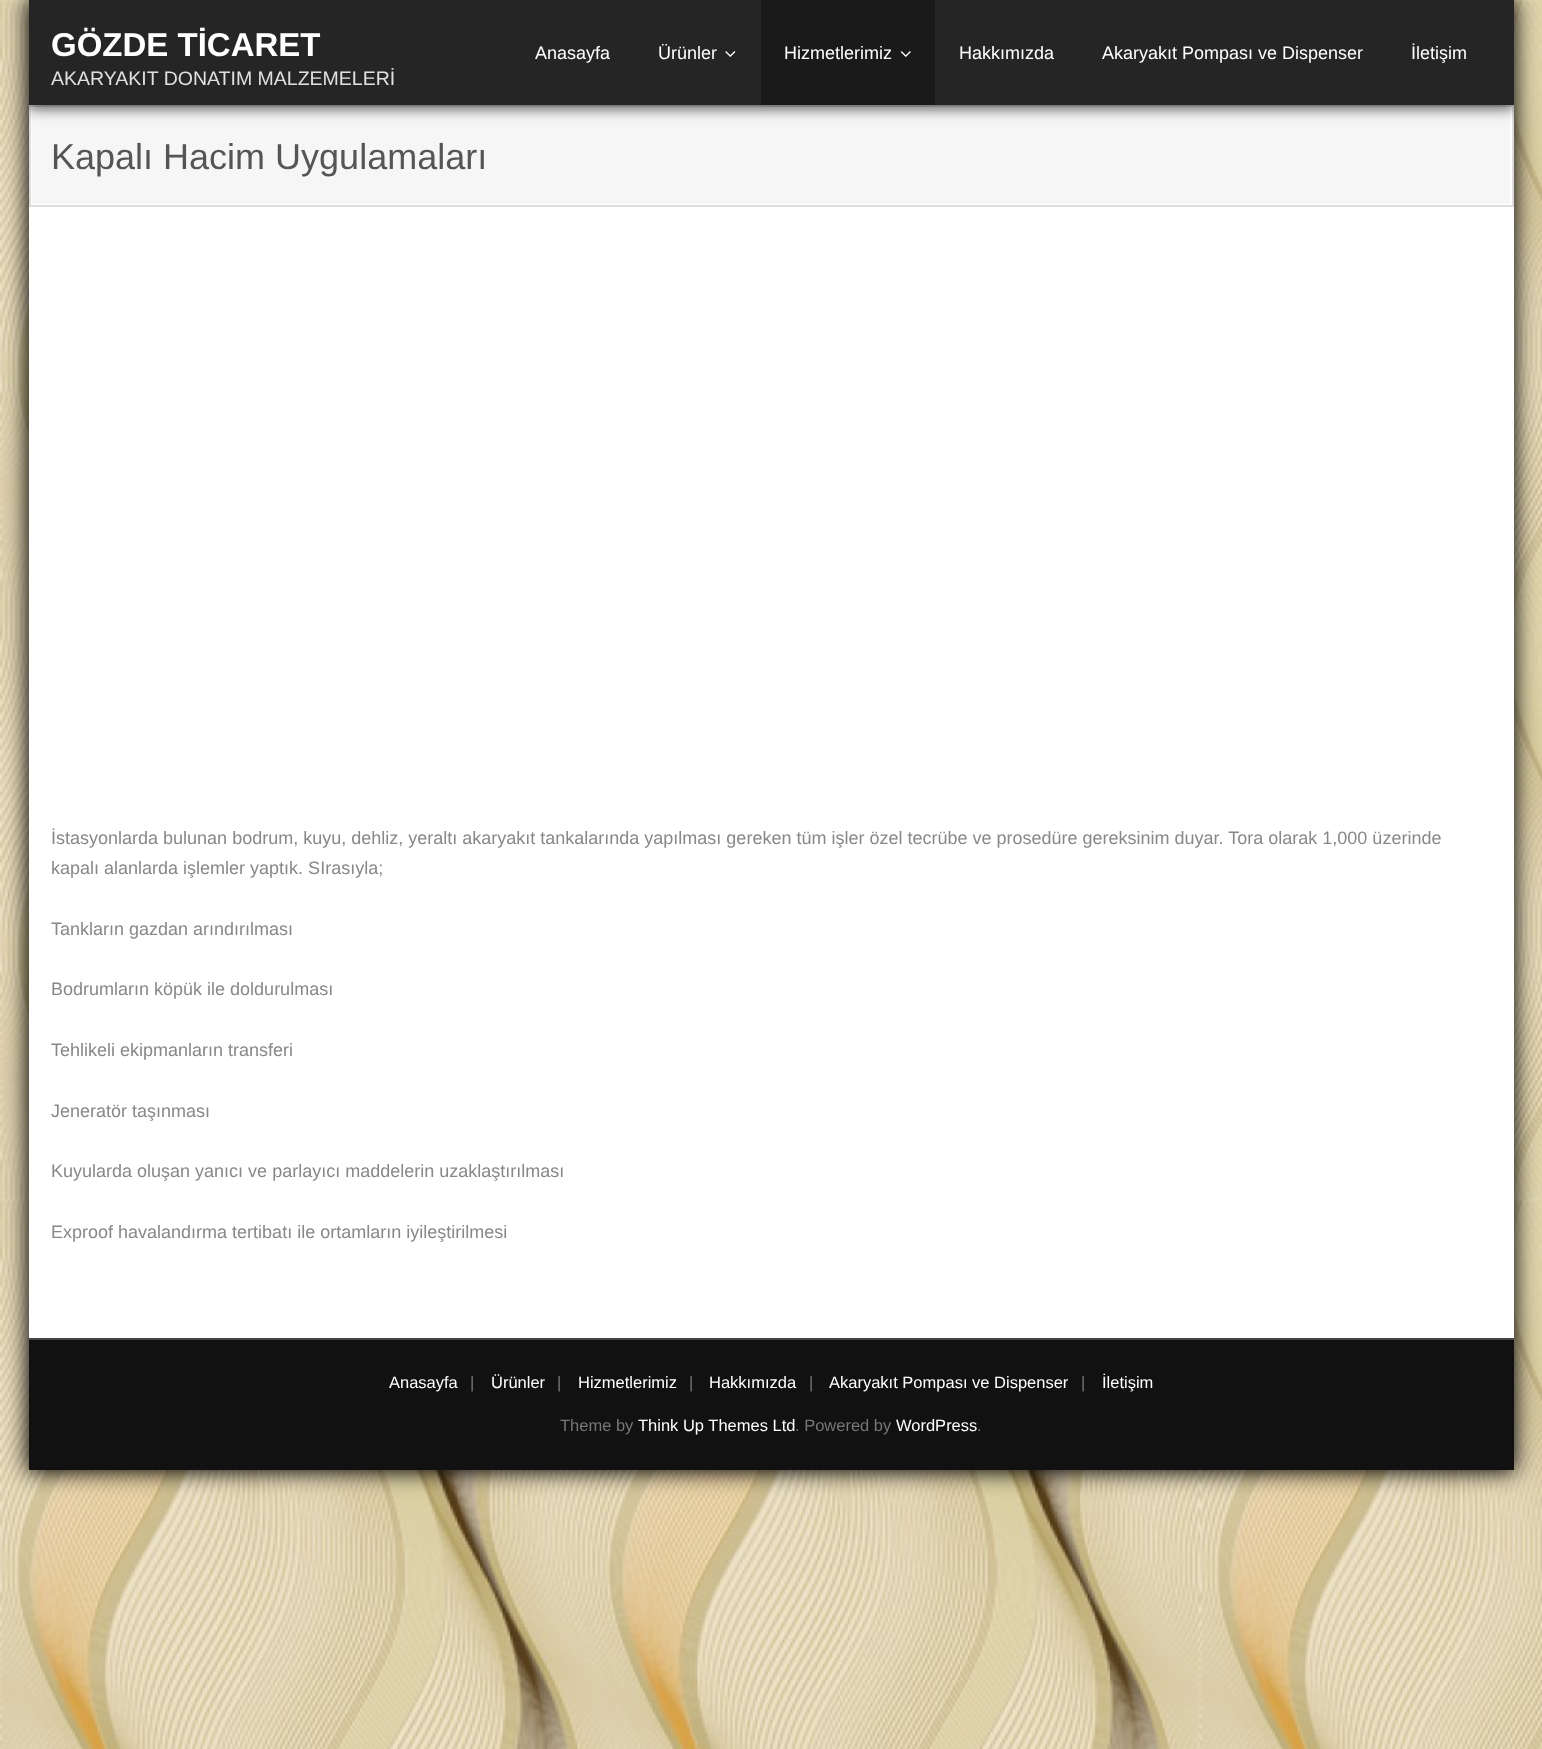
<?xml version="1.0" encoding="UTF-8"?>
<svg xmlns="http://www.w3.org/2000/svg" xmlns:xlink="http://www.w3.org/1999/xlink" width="1542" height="1749">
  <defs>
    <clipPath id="clip1"><rect x="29" y="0" width="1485" height="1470" /></clipPath>
  </defs>
  <rect width="100%" height="100%" fill="#ffffff" />
  <image x="0" y="0" width="1542" height="1749" xlink:href="image1.png" />
  <rect x="27" y="-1" width="1488" height="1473" fill="#000000" filter="blur(11px)" />
  <rect x="29" y="207" width="1485" height="1131" fill="#ffffff" />
  <rect x="31" y="108" width="1480" height="97" fill="#f6f6f6" stroke="#ffffff" stroke-width="2" />
  <rect x="30" y="106" width="1483" height="100" fill="none" stroke="#dddddd" stroke-width="2" />
  <g clip-path="url(#clip1)">
    <rect x="27" y="-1" width="1488" height="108" fill="#333333" filter="blur(7.5px)" />
  </g>
  <rect x="29" width="1485" height="105" fill="#252525" />
  <image x="725" y="51" width="11" height="6" xlink:href="image2.png" />
  <rect x="761" width="174" height="105" fill="#1a1a1a" />
  <image x="900" y="51" width="11" height="6" xlink:href="image3.png" />
  <rect x="29" y="1340" width="1485" height="130" fill="#111111" />
  <rect x="29" y="1338" width="1485" height="2" fill="#444444" />
  <text x="51" y="56" style="font-family: Liberation Sans; font-size: 33px; font-weight: bold; fill: #ffffff">GÖZDE TİCARET</text>
  <text x="51" y="85" style="font-family: Liberation Sans; font-size: 19.5px; fill: #e0e0e0">AKARYAKIT DONATIM MALZEMELERİ</text>
  <text x="535" y="59" style="font-family: Liberation Sans; font-size: 18px; fill: #ffffff">Anasayfa</text>
  <text x="658" y="59" style="font-family: Liberation Sans; font-size: 18px; fill: #ffffff">Ürünler</text>
  <text x="784" y="59" style="font-family: Liberation Sans; font-size: 18px; fill: #ffffff">Hizmetlerimiz</text>
  <text x="959" y="59" style="font-family: Liberation Sans; font-size: 18px; fill: #ffffff">Hakkımızda</text>
  <text x="1102" y="59" style="font-family: Liberation Sans; font-size: 18px; fill: #ffffff">Akaryakıt Pompası ve Dispenser</text>
  <text x="1411" y="59" style="font-family: Liberation Sans; font-size: 18px; fill: #ffffff">İletişim</text>
  <text x="51" y="169" style="font-family: Liberation Sans; font-size: 36px; fill: #555555">Kapalı Hacim Uygulamaları</text>
  <text x="51" y="844" style="font-family: Liberation Sans; font-size: 18px; fill: #888888">İstasyonlarda bulunan bodrum, kuyu, dehliz, yeraltı akaryakıt tankalarında yapılması gereken tüm işler özel tecrübe ve prosedüre gereksinim duyar. Tora olarak 1,000 üzerinde</text>
  <text x="51" y="874" style="font-family: Liberation Sans; font-size: 18px; fill: #888888">kapalı alanlarda işlemler yaptık. SIrasıyla;</text>
  <text x="51" y="935" style="font-family: Liberation Sans; font-size: 18px; fill: #888888">Tankların gazdan arındırılması</text>
  <text x="51" y="995" style="font-family: Liberation Sans; font-size: 18px; fill: #888888">Bodrumların köpük ile doldurulması</text>
  <text x="51" y="1056" style="font-family: Liberation Sans; font-size: 18px; fill: #888888">Tehlikeli ekipmanların transferi</text>
  <text x="51" y="1117" style="font-family: Liberation Sans; font-size: 18px; fill: #888888">Jeneratör taşınması</text>
  <text x="51" y="1177" style="font-family: Liberation Sans; font-size: 18px; fill: #888888">Kuyularda oluşan yanıcı ve parlayıcı maddelerin uzaklaştırılması</text>
  <text x="51" y="1238" style="font-family: Liberation Sans; font-size: 18px; fill: #888888">Exproof havalandırma tertibatı ile ortamların iyileştirilmesi</text>
  <text x="389" y="1388" style="font-family: Liberation Sans; font-size: 16.5px; fill: #ffffff">Anasayfa</text>
  <text x="470" y="1388" style="font-family: Liberation Sans; font-size: 16.5px; fill: #777777">|</text>
  <text x="491" y="1388" style="font-family: Liberation Sans; font-size: 16.5px; fill: #ffffff">Ürünler</text>
  <text x="557" y="1388" style="font-family: Liberation Sans; font-size: 16.5px; fill: #777777">|</text>
  <text x="578" y="1388" style="font-family: Liberation Sans; font-size: 16.5px; fill: #ffffff">Hizmetlerimiz</text>
  <text x="689" y="1388" style="font-family: Liberation Sans; font-size: 16.5px; fill: #777777">|</text>
  <text x="709" y="1388" style="font-family: Liberation Sans; font-size: 16.5px; fill: #ffffff">Hakkımızda</text>
  <text x="809" y="1388" style="font-family: Liberation Sans; font-size: 16.5px; fill: #777777">|</text>
  <text x="829" y="1388" style="font-family: Liberation Sans; font-size: 16.5px; fill: #ffffff">Akaryakıt Pompası ve Dispenser</text>
  <text x="1081" y="1388" style="font-family: Liberation Sans; font-size: 16.5px; fill: #777777">|</text>
  <text x="1102" y="1388" style="font-family: Liberation Sans; font-size: 16.5px; fill: #ffffff">İletişim</text>
  <text x="560" y="1431" style="font-family: Liberation Sans; font-size: 16.5px; fill: #777777">Theme by</text>
  <text x="638" y="1431" style="font-family: Liberation Sans; font-size: 16.5px; fill: #ffffff">Think Up Themes Ltd</text>
  <text x="795" y="1431" style="font-family: Liberation Sans; font-size: 16.5px; fill: #777777">. Powered by</text>
  <text x="896" y="1431" style="font-family: Liberation Sans; font-size: 16.5px; fill: #ffffff">WordPress</text>
  <text x="977" y="1431" style="font-family: Liberation Sans; font-size: 16.5px; fill: #777777">.</text>
</svg>
